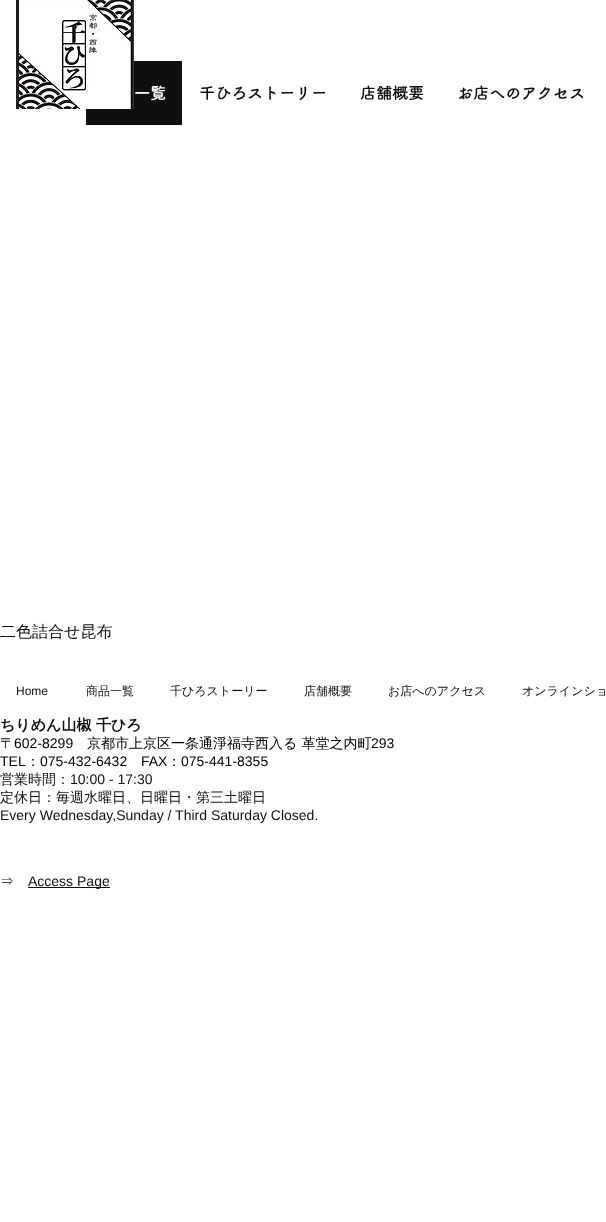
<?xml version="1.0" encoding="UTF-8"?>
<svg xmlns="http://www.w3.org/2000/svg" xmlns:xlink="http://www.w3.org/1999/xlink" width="606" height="1222">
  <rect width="100%" height="100%" fill="#ffffff" />
  <rect x="86" y="61" width="96" height="64" fill="#0f0f0f" />
  <image x="16" y="0" width="118" height="109" xlink:href="image1.png" />
  <rect x="28" y="887" width="82" height="1" fill="#0f0f0f" />
  <text x="134" y="99" style="font-family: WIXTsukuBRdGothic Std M; font-size: 16px; font-weight: bold; fill: #ffffff">一覧</text>
  <text x="199" y="99" style="font-family: WIXTsukuBRdGothic Std M; font-size: 16px; font-weight: bold; fill: #0f0f0f">千ひろストーリー</text>
  <text x="360" y="99" style="font-family: WIXTsukuBRdGothic Std M; font-size: 16px; font-weight: bold; fill: #0f0f0f">店舗概要</text>
  <text x="457" y="99" style="font-family: WIXTsukuBRdGothic Std M; font-size: 16px; font-weight: bold; fill: #0f0f0f">お店へのアクセス</text>
  <text x="0" y="637" style="font-family: WenQuanYi Zen Hei; font-size: 16px; font-weight: 500; fill: #0f0f0f">二色詰合せ昆布</text>
  <text x="16" y="695" style="font-family: Liberation Sans; font-size: 12px; fill: #0f0f0f">Home</text>
  <text x="86" y="695" style="font-family: WenQuanYi Zen Hei; font-size: 12px; font-weight: 500; fill: #0f0f0f">商品一覧</text>
  <text x="170" y="695" style="font-family: WenQuanYi Zen Hei; font-size: 12px; font-weight: 500; fill: #0f0f0f">千ひろストーリー</text>
  <text x="304" y="695" style="font-family: WenQuanYi Zen Hei; font-size: 12px; font-weight: 500; fill: #0f0f0f">店舗概要</text>
  <text x="388" y="695" style="font-family: WenQuanYi Zen Hei; font-size: 12px; font-weight: 500; fill: #0f0f0f">お店へのアクセス</text>
  <text x="522" y="695" style="font-family: WenQuanYi Zen Hei; font-size: 12px; font-weight: 500; fill: #0f0f0f">オンラインショ</text>
  <text x="0" y="730" style="font-family: WenQuanYi Zen Hei; font-size: 15px; font-weight: bold; fill: #0f0f0f">ちりめん山椒 千ひろ</text>
  <text x="0" y="748" style="font-family: WenQuanYi Zen Hei; font-size: 14px; font-weight: 500; fill: #000000">〒</text>
  <text x="14" y="748" style="font-family: Liberation Sans; font-size: 14px; fill: #000000">602-8299</text>
  <text x="87" y="748" style="font-family: WenQuanYi Zen Hei; font-size: 14px; font-weight: 500; fill: #000000">京都市上京区一条通淨福寺西入る 革堂之内町</text>
  <text x="371" y="748" style="font-family: Liberation Sans; font-size: 14px; fill: #000000">293</text>
  <text x="0" y="766" style="font-family: Liberation Sans; font-size: 14px; fill: #000000">TEL</text>
  <text x="26" y="766" style="font-family: WenQuanYi Zen Hei; font-size: 14px; font-weight: 500; fill: #000000">：</text>
  <text x="40" y="766" style="font-family: Liberation Sans; font-size: 14px; fill: #000000">075-432-6432</text>
  <text x="141" y="766" style="font-family: Liberation Sans; font-size: 14px; fill: #000000">FAX</text>
  <text x="167" y="766" style="font-family: WenQuanYi Zen Hei; font-size: 14px; font-weight: 500; fill: #000000">：</text>
  <text x="181" y="766" style="font-family: Liberation Sans; font-size: 14px; fill: #000000">075-441-8355</text>
  <text x="0" y="784" style="font-family: WenQuanYi Zen Hei; font-size: 14px; font-weight: 500; fill: #0f0f0f">営業時間：</text>
  <text x="70" y="784" style="font-family: Liberation Sans; font-size: 14px; fill: #0f0f0f">10:00 - 17:30</text>
  <text x="0" y="802" style="font-family: WenQuanYi Zen Hei; font-size: 14px; font-weight: 500; fill: #0f0f0f">定休日：毎週水曜日、日曜日・第三土曜日</text>
  <text x="0" y="820" style="font-family: Liberation Sans; font-size: 14px; fill: #0f0f0f">Every Wednesday,Sunday / Third Saturday Closed.</text>
  <text x="0" y="886" style="font-family: WenQuanYi Zen Hei; font-size: 14px; font-weight: 500; fill: #0f0f0f">⇒</text>
  <text x="28" y="886" style="font-family: Liberation Sans; font-size: 14px; fill: #0f0f0f">Access Page</text>
</svg>
